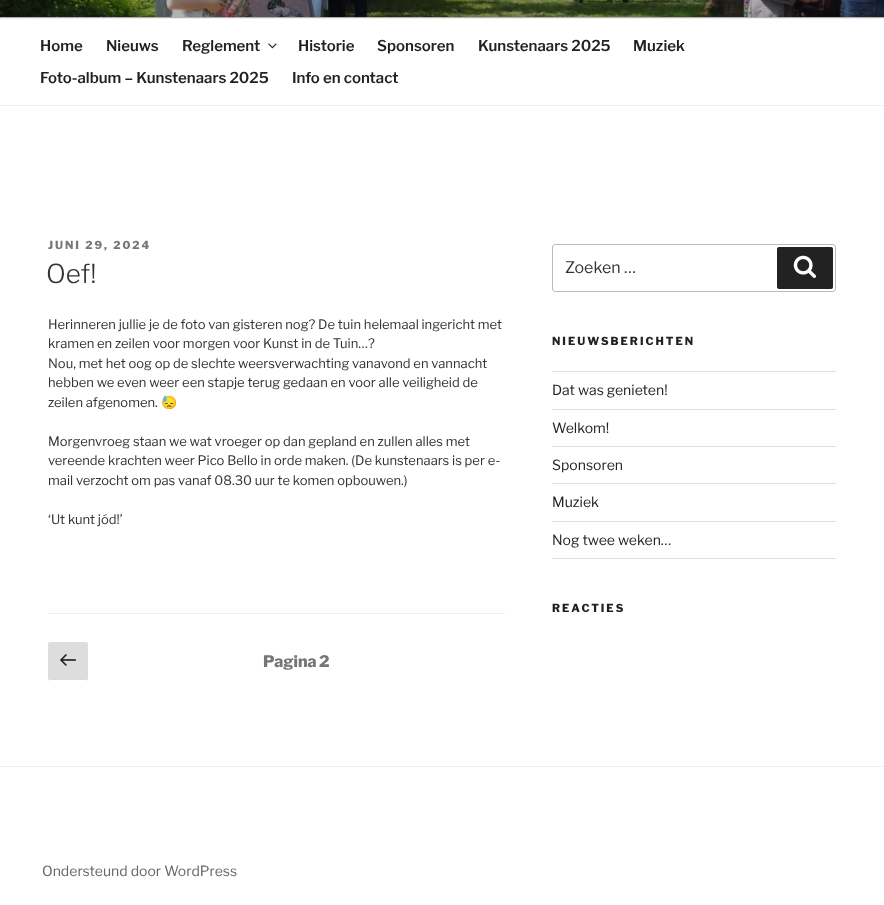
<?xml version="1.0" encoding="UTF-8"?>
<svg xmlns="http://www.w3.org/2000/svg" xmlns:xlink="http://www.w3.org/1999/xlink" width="884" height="905">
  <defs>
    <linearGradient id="g1" gradientUnits="userSpaceOnUse" x1="442" y1="-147" x2="442" y2="18"><stop offset="0" stop-color="#000000" stop-opacity="0" /><stop offset="0.75" stop-color="#000000" stop-opacity="0.3" /><stop offset="1" stop-color="#000000" stop-opacity="0.3" /></linearGradient>
  </defs>
  <rect width="100%" height="100%" fill="#ffffff" />
  <rect y="17" width="884" height="1" fill="#fafafa" />
  <image x="0" y="0" width="884" height="17" xlink:href="image1.png" />
  <rect width="884" height="18" fill="url(#g1)" />
  <rect y="18" width="884" height="1" fill="#eeeeee" />
  <rect y="105" width="884" height="1" fill="#eeeeee" />
  <image x="268" y="43" width="9" height="6" xlink:href="image2.png" />
  <rect x="48" y="613" width="457" height="1" fill="#eeeeee" />
  <rect x="48" y="642" width="40" height="39" rx="2" fill="#dddddd" />
  <path d="M 48 678 c 0 4 4 3 8 3 h 24 c 4 0 8 1 8 -3 c 0 1 -1 2 -2 2 h -36 c -1 0 -2 -1 -2 -2 z" fill="#ffffff" />
  <image x="60" y="654" width="16" height="12" xlink:href="image3.png" />
  <rect x="552.5" y="244.5" width="283" height="47" rx="2.5" fill="none" stroke="#bbbbbb" />
  <rect x="777" y="247" width="56" height="42" rx="2" fill="#222222" />
  <image x="793" y="255" width="23" height="23" xlink:href="image4.png" />
  <rect x="552" y="371" width="284" height="1" fill="#dddddd" />
  <rect x="552" y="409" width="284" height="1" fill="#dddddd" />
  <rect x="552" y="446" width="284" height="1" fill="#dddddd" />
  <rect x="552" y="483" width="284" height="1" fill="#dddddd" />
  <rect x="552" y="521" width="284" height="1" fill="#dddddd" />
  <rect x="552" y="558" width="284" height="1" fill="#dddddd" />
  <rect y="766" width="884" height="1" fill="#eeeeee" />
  <text x="40" y="51" style="font-family: 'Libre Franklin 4'; font-size: 15px; font-weight: 100; fill: #222222">Home</text>
  <text x="106" y="51" style="font-family: 'Libre Franklin 4'; font-size: 15px; font-weight: 100; fill: #222222">Nieuws</text>
  <text x="182" y="51" style="font-family: 'Libre Franklin 4'; font-size: 15px; font-weight: 100; fill: #222222">Reglement</text>
  <text x="298" y="51" style="font-family: 'Libre Franklin 4'; font-size: 15px; font-weight: 100; fill: #222222">Historie</text>
  <text x="377" y="51" style="font-family: 'Libre Franklin 4'; font-size: 15px; font-weight: 100; fill: #222222">Sponsoren</text>
  <text x="478" y="51" style="font-family: 'Libre Franklin 4'; font-size: 15px; font-weight: 100; fill: #222222">Kunstenaars 2025</text>
  <text x="633" y="51" style="font-family: 'Libre Franklin 4'; font-size: 15px; font-weight: 100; fill: #222222">Muziek</text>
  <text x="40" y="83" style="font-family: 'Libre Franklin 4'; font-size: 15px; font-weight: 100; fill: #222222">Foto-album – Kunstenaars 2025</text>
  <text x="292" y="83" style="font-family: 'Libre Franklin 4'; font-size: 15px; font-weight: 100; fill: #222222">Info en contact</text>
  <text x="48" y="249" style="font-family: Libre Franklin; font-size: 11px; font-weight: 100; letter-spacing: 2px; fill: #767676">JUNI 29, 2024</text>
  <text x="46" y="283" style="font-family: 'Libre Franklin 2'; font-size: 26px; font-weight: 100; fill: #333333">Oef!</text>
  <text x="48" y="329" style="font-family: 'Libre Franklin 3'; font-size: 13px; font-weight: 100; fill: #333333">Herinneren jullie je de foto van gisteren nog? De tuin helemaal ingericht met</text>
  <text x="48" y="348" style="font-family: 'Libre Franklin 3'; font-size: 13px; font-weight: 100; fill: #333333">kramen en zeilen voor morgen voor Kunst in de Tuin…?</text>
  <text x="48" y="368" style="font-family: 'Libre Franklin 3'; font-size: 13px; font-weight: 100; fill: #333333">Nou, met het oog op de slechte weersverwachting vanavond en vannacht</text>
  <text x="48" y="387" style="font-family: 'Libre Franklin 3'; font-size: 13px; font-weight: 100; fill: #333333">hebben we even weer een stapje terug gedaan en voor alle veiligheid de</text>
  <text x="48" y="407" style="font-family: 'Libre Franklin 3'; font-size: 13px; font-weight: 100; fill: #333333">zeilen afgenomen.</text>
  <text x="161" y="407" style="font-family: Noto Color Emoji; font-size: 13px; fill: #333333">😓</text>
  <text x="48" y="446" style="font-family: 'Libre Franklin 3'; font-size: 13px; font-weight: 100; fill: #333333">Morgenvroeg staan we wat vroeger op dan gepland en zullen alles met</text>
  <text x="48" y="465" style="font-family: 'Libre Franklin 3'; font-size: 13px; font-weight: 100; fill: #333333">vereende krachten weer Pico Bello in orde maken. (De kunstenaars is per e-</text>
  <text x="48" y="485" style="font-family: 'Libre Franklin 3'; font-size: 13px; font-weight: 100; fill: #333333">mail verzocht om pas vanaf 08.30 uur te komen opbouwen.)</text>
  <text x="48" y="524" style="font-family: 'Libre Franklin 3'; font-size: 13px; font-weight: 100; fill: #333333">‘Ut kunt jód!’</text>
  <text x="263" y="667" style="font-family: Libre Franklin; font-size: 16px; font-weight: 100; fill: #767676">Pagina</text>
  <text x="319" y="667" style="font-family: Libre Franklin; font-size: 16px; font-weight: 100; fill: #767676">2</text>
  <text x="565" y="273" style="font-family: 'Libre Franklin 3'; font-size: 16px; font-weight: 100; fill: #333333">Zoeken …</text>
  <text x="552" y="345" style="font-family: Libre Franklin; font-size: 11px; font-weight: 100; letter-spacing: 2px; fill: #222222">NIEUWSBERICHTEN</text>
  <text x="552" y="395" style="font-family: 'Libre Franklin 3'; font-size: 14px; font-weight: 100; fill: #222222">Dat was genieten!</text>
  <text x="552" y="433" style="font-family: 'Libre Franklin 3'; font-size: 14px; font-weight: 100; fill: #222222">Welkom!</text>
  <text x="552" y="470" style="font-family: 'Libre Franklin 3'; font-size: 14px; font-weight: 100; fill: #222222">Sponsoren</text>
  <text x="552" y="507" style="font-family: 'Libre Franklin 3'; font-size: 14px; font-weight: 100; fill: #222222">Muziek</text>
  <text x="552" y="545" style="font-family: 'Libre Franklin 3'; font-size: 14px; font-weight: 100; fill: #222222">Nog twee weken…</text>
  <text x="552" y="612" style="font-family: Libre Franklin; font-size: 11px; font-weight: 100; letter-spacing: 2px; fill: #222222">REACTIES</text>
  <text x="42" y="876" style="font-family: 'Libre Franklin 3'; font-size: 14px; font-weight: 100; fill: #666666">Ondersteund door WordPress</text>
</svg>
